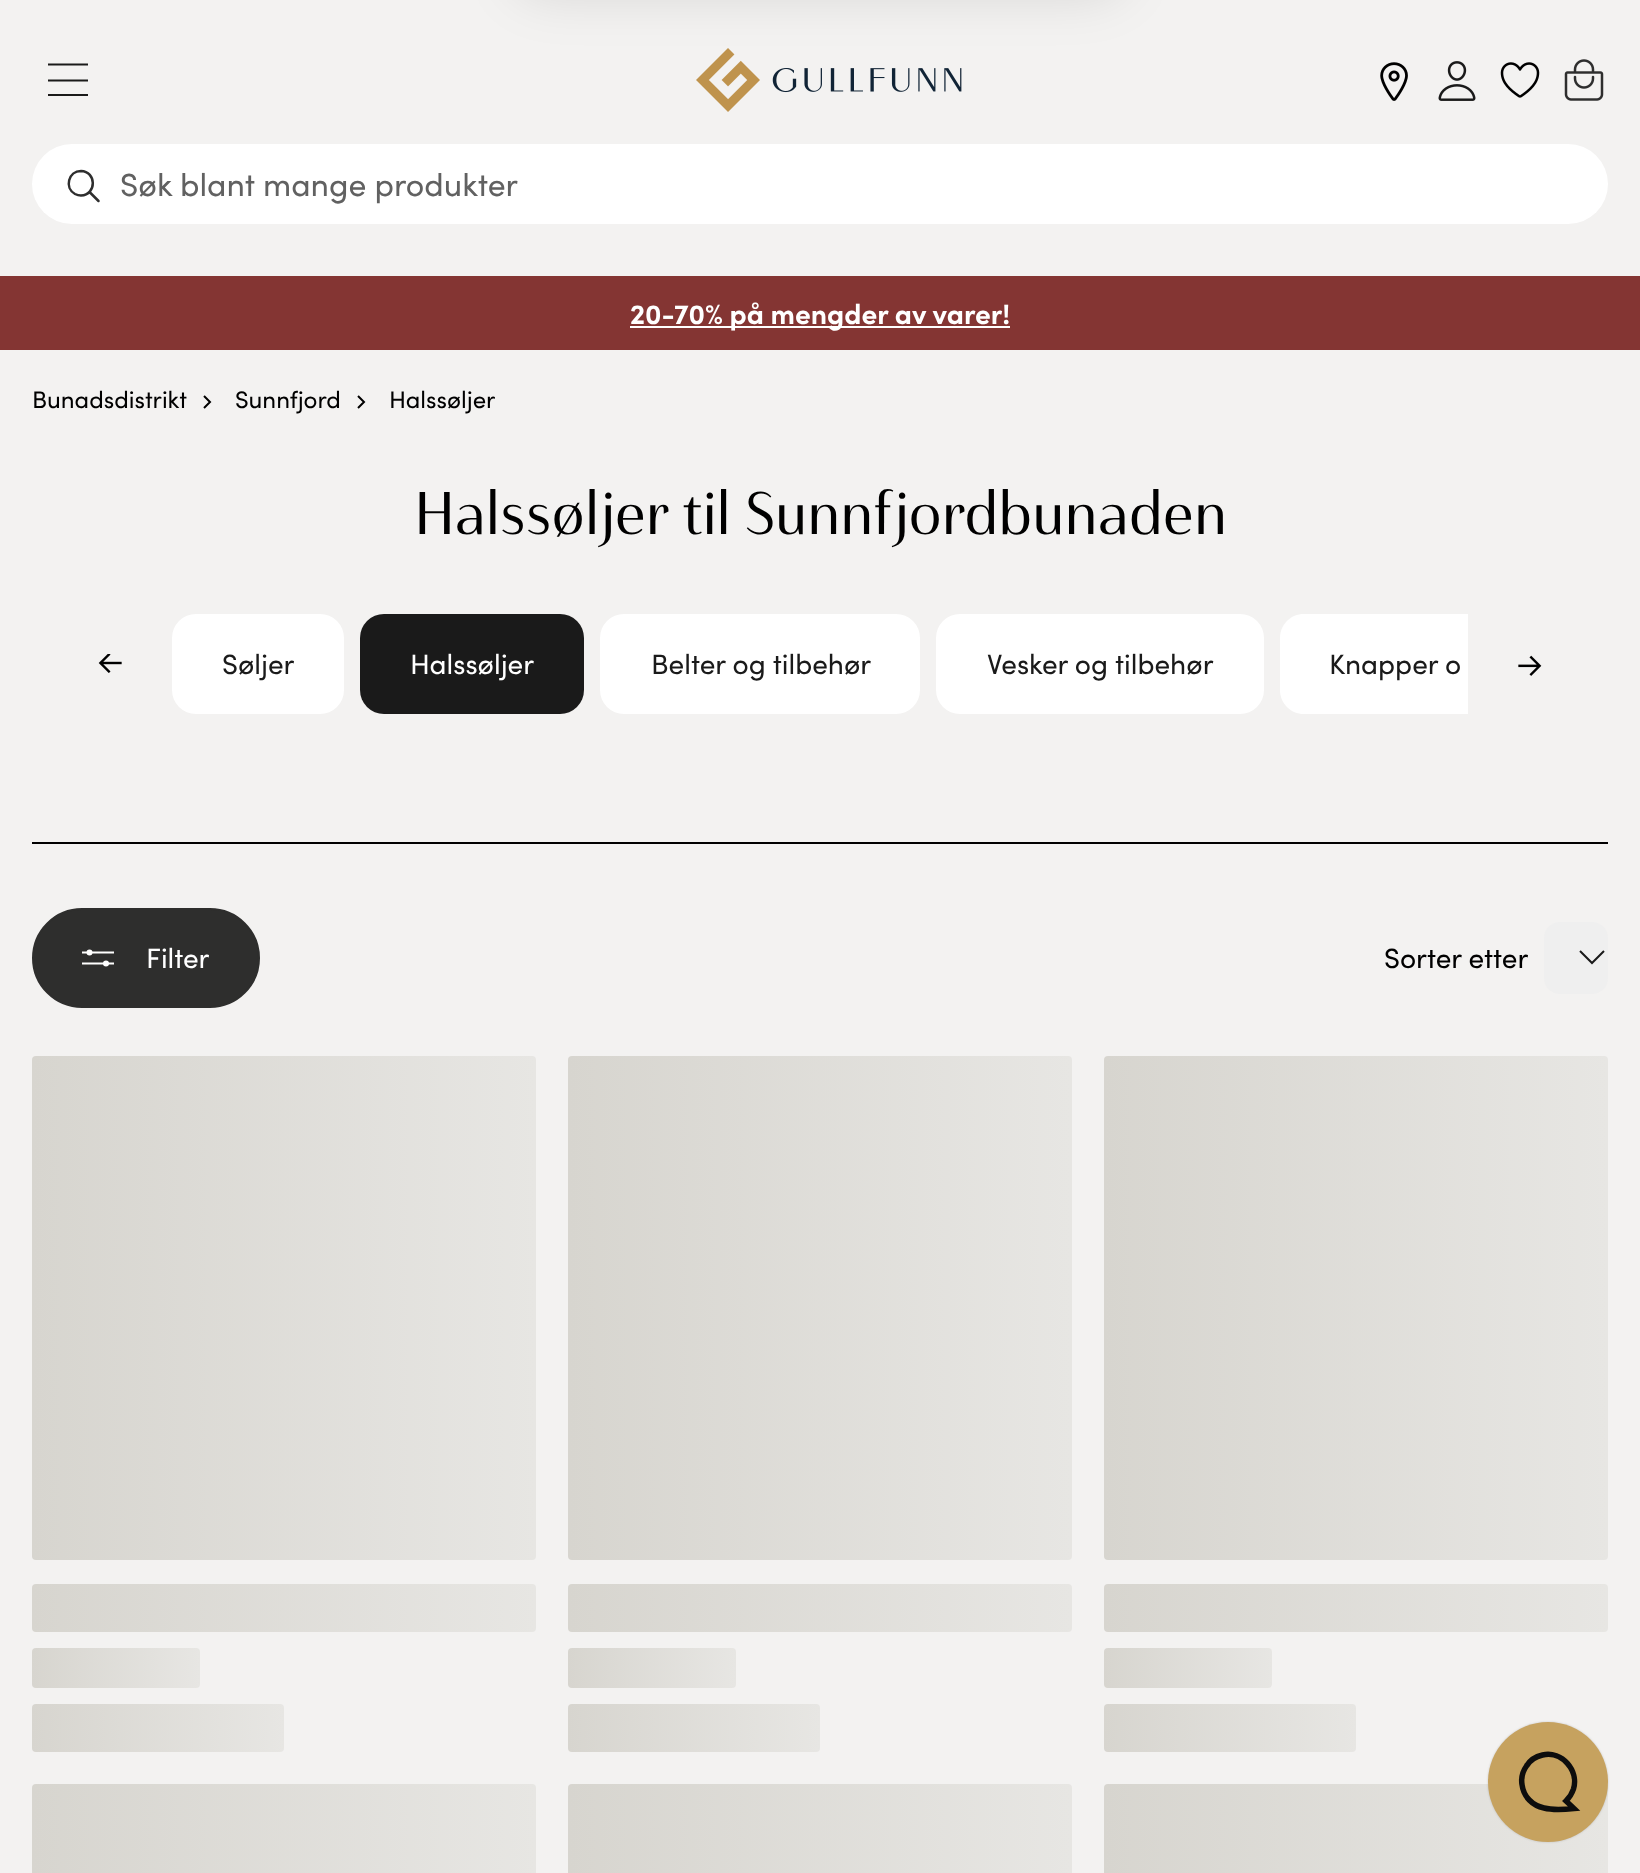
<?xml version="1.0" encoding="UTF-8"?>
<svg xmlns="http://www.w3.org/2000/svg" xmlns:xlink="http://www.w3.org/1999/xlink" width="1640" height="1873">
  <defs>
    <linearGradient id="g1" gradientUnits="userSpaceOnUse" x1="536" y1="1308" x2="32" y2="1308"><stop offset="0" stop-color="#e7e6e3" /><stop offset="1" stop-color="#d7d5cf" /></linearGradient>
    <linearGradient id="g2" gradientUnits="userSpaceOnUse" x1="536" y1="1608" x2="32" y2="1608"><stop offset="0" stop-color="#e7e6e3" /><stop offset="1" stop-color="#d7d5cf" /></linearGradient>
    <linearGradient id="g3" gradientUnits="userSpaceOnUse" x1="200" y1="1668" x2="32" y2="1668"><stop offset="0" stop-color="#e7e6e3" /><stop offset="1" stop-color="#d7d5cf" /></linearGradient>
    <linearGradient id="g4" gradientUnits="userSpaceOnUse" x1="284" y1="1728" x2="32" y2="1728"><stop offset="0" stop-color="#e7e6e3" /><stop offset="1" stop-color="#d7d5cf" /></linearGradient>
    <linearGradient id="g5" gradientUnits="userSpaceOnUse" x1="1072" y1="1308" x2="568" y2="1308"><stop offset="0" stop-color="#e7e6e3" /><stop offset="1" stop-color="#d7d5cf" /></linearGradient>
    <linearGradient id="g6" gradientUnits="userSpaceOnUse" x1="1072" y1="1608" x2="568" y2="1608"><stop offset="0" stop-color="#e7e6e3" /><stop offset="1" stop-color="#d7d5cf" /></linearGradient>
    <linearGradient id="g7" gradientUnits="userSpaceOnUse" x1="736" y1="1668" x2="568" y2="1668"><stop offset="0" stop-color="#e7e6e3" /><stop offset="1" stop-color="#d7d5cf" /></linearGradient>
    <linearGradient id="g8" gradientUnits="userSpaceOnUse" x1="820" y1="1728" x2="568" y2="1728"><stop offset="0" stop-color="#e7e6e3" /><stop offset="1" stop-color="#d7d5cf" /></linearGradient>
    <linearGradient id="g9" gradientUnits="userSpaceOnUse" x1="1608" y1="1308" x2="1104" y2="1308"><stop offset="0" stop-color="#e7e6e3" /><stop offset="1" stop-color="#d7d5cf" /></linearGradient>
    <linearGradient id="g10" gradientUnits="userSpaceOnUse" x1="1608" y1="1608" x2="1104" y2="1608"><stop offset="0" stop-color="#e7e6e3" /><stop offset="1" stop-color="#d7d5cf" /></linearGradient>
    <linearGradient id="g11" gradientUnits="userSpaceOnUse" x1="1272" y1="1668" x2="1104" y2="1668"><stop offset="0" stop-color="#e7e6e3" /><stop offset="1" stop-color="#d7d5cf" /></linearGradient>
    <linearGradient id="g12" gradientUnits="userSpaceOnUse" x1="1356" y1="1728" x2="1104" y2="1728"><stop offset="0" stop-color="#e7e6e3" /><stop offset="1" stop-color="#d7d5cf" /></linearGradient>
    <linearGradient id="g13" gradientUnits="userSpaceOnUse" x1="536" y1="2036" x2="32" y2="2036"><stop offset="0" stop-color="#e7e6e3" /><stop offset="1" stop-color="#d7d5cf" /></linearGradient>
    <linearGradient id="g14" gradientUnits="userSpaceOnUse" x1="1072" y1="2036" x2="568" y2="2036"><stop offset="0" stop-color="#e7e6e3" /><stop offset="1" stop-color="#d7d5cf" /></linearGradient>
    <linearGradient id="g15" gradientUnits="userSpaceOnUse" x1="1608" y1="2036" x2="1104" y2="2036"><stop offset="0" stop-color="#e7e6e3" /><stop offset="1" stop-color="#d7d5cf" /></linearGradient>
  </defs>
  <rect width="100%" height="100%" fill="#f3f2f1" />
  <path d="M 48 64.5 h 40 m -40 30.5 h 40 m -40 -14.5 h 40" fill="none" stroke="#1a1a1a" stroke-width="2.1" />
  <image x="696" y="48" width="266" height="64" xlink:href="image1.png" />
  <image x="1380" y="62" width="28" height="39" xlink:href="image2.png" />
  <image x="1438" y="61" width="38" height="40" xlink:href="image3.png" />
  <image x="1500" y="62" width="40" height="36" xlink:href="image4.png" />
  <image x="1564" y="59" width="40" height="42" xlink:href="image5.png" />
  <rect x="32" y="144" width="1576" height="80" rx="40" fill="#ffffff" />
  <path d="M 81 171 c -12.5 0 -17 17 -6 23 c 2 1 4 1.5 6 1.5 c 16 -1 15.5 -24 0 -24.5 z" fill="none" stroke="#2e2e2e" stroke-width="2.5" />
  <path d="M 90 192.5 l 8.5 8.5" fill="none" stroke="#2e2e2e" stroke-width="2.5" stroke-linecap="round" />
  <rect y="276" width="1640" height="74" fill="#843533" />
  <rect x="630" y="326" width="380" height="2" fill="#ffffff" />
  <path d="M 204 396 l 6 6 l -6 6" fill="none" stroke="#000000" stroke-width="2" />
  <path d="M 358 396 l 6 6 l -6 6" fill="none" stroke="#000000" stroke-width="2" />
  <image x="98" y="654" width="24" height="19" xlink:href="image6.png" />
  <rect x="172" y="614" width="172" height="100" rx="24" fill="#ffffff" />
  <rect x="360" y="614" width="224" height="100" rx="24" fill="#1a1a1a" />
  <rect x="600" y="614" width="320" height="100" rx="24" fill="#ffffff" />
  <rect x="936" y="614" width="328" height="100" rx="24" fill="#ffffff" />
  <path d="M 1304 614 h 164 v 100 h -164 c -13.5 0 -24 -10.5 -24 -24 v -52 c 0 -13.5 10.5 -24 24 -24 z" fill="#ffffff" />
  <image x="1518" y="655" width="24" height="21" xlink:href="image7.png" />
  <rect x="32" y="842" width="1576" height="2" fill="#000000" />
  <rect x="510" y="-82" width="620" height="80" rx="40" fill="#000000" fill-opacity="0.1" filter="blur(25px)" />
  <rect x="33" y="909" width="226" height="98" rx="49" fill="#2e2e2d" stroke="#2e2e2d" stroke-width="2" />
  <path d="M 82 952.5 h 32 m -32 11 h 32" fill="none" stroke="#ffffff" stroke-width="2.2" />
  <circle cx="89.5" cy="952.5" r="3" fill="#ffffff" />
  <circle cx="106" cy="963.5" r="3" fill="#ffffff" />
  <rect x="1544" y="922" width="64" height="72" rx="16" fill="#efefef" />
  <path d="M 1580 951 l 12 12 l 12 -12" fill="none" stroke="#1a1a1a" stroke-width="2" />
  <rect x="32" y="1056" width="504" height="504" rx="4" fill="url(#g1)" />
  <rect x="32" y="1584" width="504" height="48" rx="4" fill="url(#g2)" />
  <rect x="32" y="1648" width="168" height="40" rx="4" fill="url(#g3)" />
  <rect x="32" y="1704" width="252" height="48" rx="4" fill="url(#g4)" />
  <rect x="568" y="1056" width="504" height="504" rx="4" fill="url(#g5)" />
  <rect x="568" y="1584" width="504" height="48" rx="4" fill="url(#g6)" />
  <rect x="568" y="1648" width="168" height="40" rx="4" fill="url(#g7)" />
  <rect x="568" y="1704" width="252" height="48" rx="4" fill="url(#g8)" />
  <rect x="1104" y="1056" width="504" height="504" rx="4" fill="url(#g9)" />
  <rect x="1104" y="1584" width="504" height="48" rx="4" fill="url(#g10)" />
  <rect x="1104" y="1648" width="168" height="40" rx="4" fill="url(#g11)" />
  <rect x="1104" y="1704" width="252" height="48" rx="4" fill="url(#g12)" />
  <rect x="32" y="1784" width="504" height="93" rx="4" fill="url(#g13)" />
  <rect x="568" y="1784" width="504" height="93" rx="4" fill="url(#g14)" />
  <rect x="1104" y="1784" width="504" height="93" rx="4" fill="url(#g15)" />
  <rect x="1488" y="1722" width="120" height="120" rx="60" fill="#000000" fill-opacity="0.16" filter="blur(1px)" />
  <circle cx="1548" cy="1782" r="60" fill="#c6a25f" />
  <path d="M 1574 1808.5 c -10 1 -20 2 -30 -0.5 c -11.5 -2.5 -20.5 -11 -22 -23.5 c -1 -6.5 0.5 -13 4.5 -18.5 c 3.5 -6 9.5 -9.5 16 -11 c 19.5 -4.5 36.5 15.5 31 34 c -1.5 4.5 -4 8.5 -7.5 12 z" fill="none" stroke="#0d0d0d" stroke-width="5.5" />
  <text x="120" y="196" style="font-family: Sofia; font-size: 32px; fill: #616161">Søk blant mange produkter</text>
  <text x="630" y="324" style="font-family: Sofia; font-size: 28px; font-weight: bold; fill: #ffffff">20-70% på mengder av varer!</text>
  <text x="32" y="408" style="font-family: Sofia; font-size: 24px; fill: #000000">Bunadsdistrikt</text>
  <text x="235" y="408" style="font-family: Sofia; font-size: 24px; fill: #000000">Sunnfjord</text>
  <text x="389" y="408" style="font-family: Sofia; font-size: 24px; fill: #000000">Halssøljer</text>
  <text x="414" y="534" style="font-family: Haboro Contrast; font-size: 60px; font-weight: 500; fill: #000000">Halssøljer til Sunnfjordbunaden</text>
  <text x="222" y="674" style="font-family: Sofia; font-size: 28px; fill: #1a1a1a">Søljer</text>
  <text x="410" y="674" style="font-family: Sofia; font-size: 28px; fill: #ffffff">Halssøljer</text>
  <text x="651" y="674" style="font-family: Sofia; font-size: 28px; fill: #1a1a1a">Belter og tilbehør</text>
  <text x="987" y="674" style="font-family: Sofia; font-size: 28px; fill: #1a1a1a">Vesker og tilbehør</text>
  <text x="1329" y="674" style="font-family: Sofia; font-size: 28px; fill: #1a1a1a">Knapper o</text>
  <text x="146" y="968" style="font-family: Sofia; font-size: 28px; fill: #ffffff">Filter</text>
  <text x="1384" y="968" style="font-family: Sofia; font-size: 28px; fill: #000000">Sorter etter</text>
</svg>
